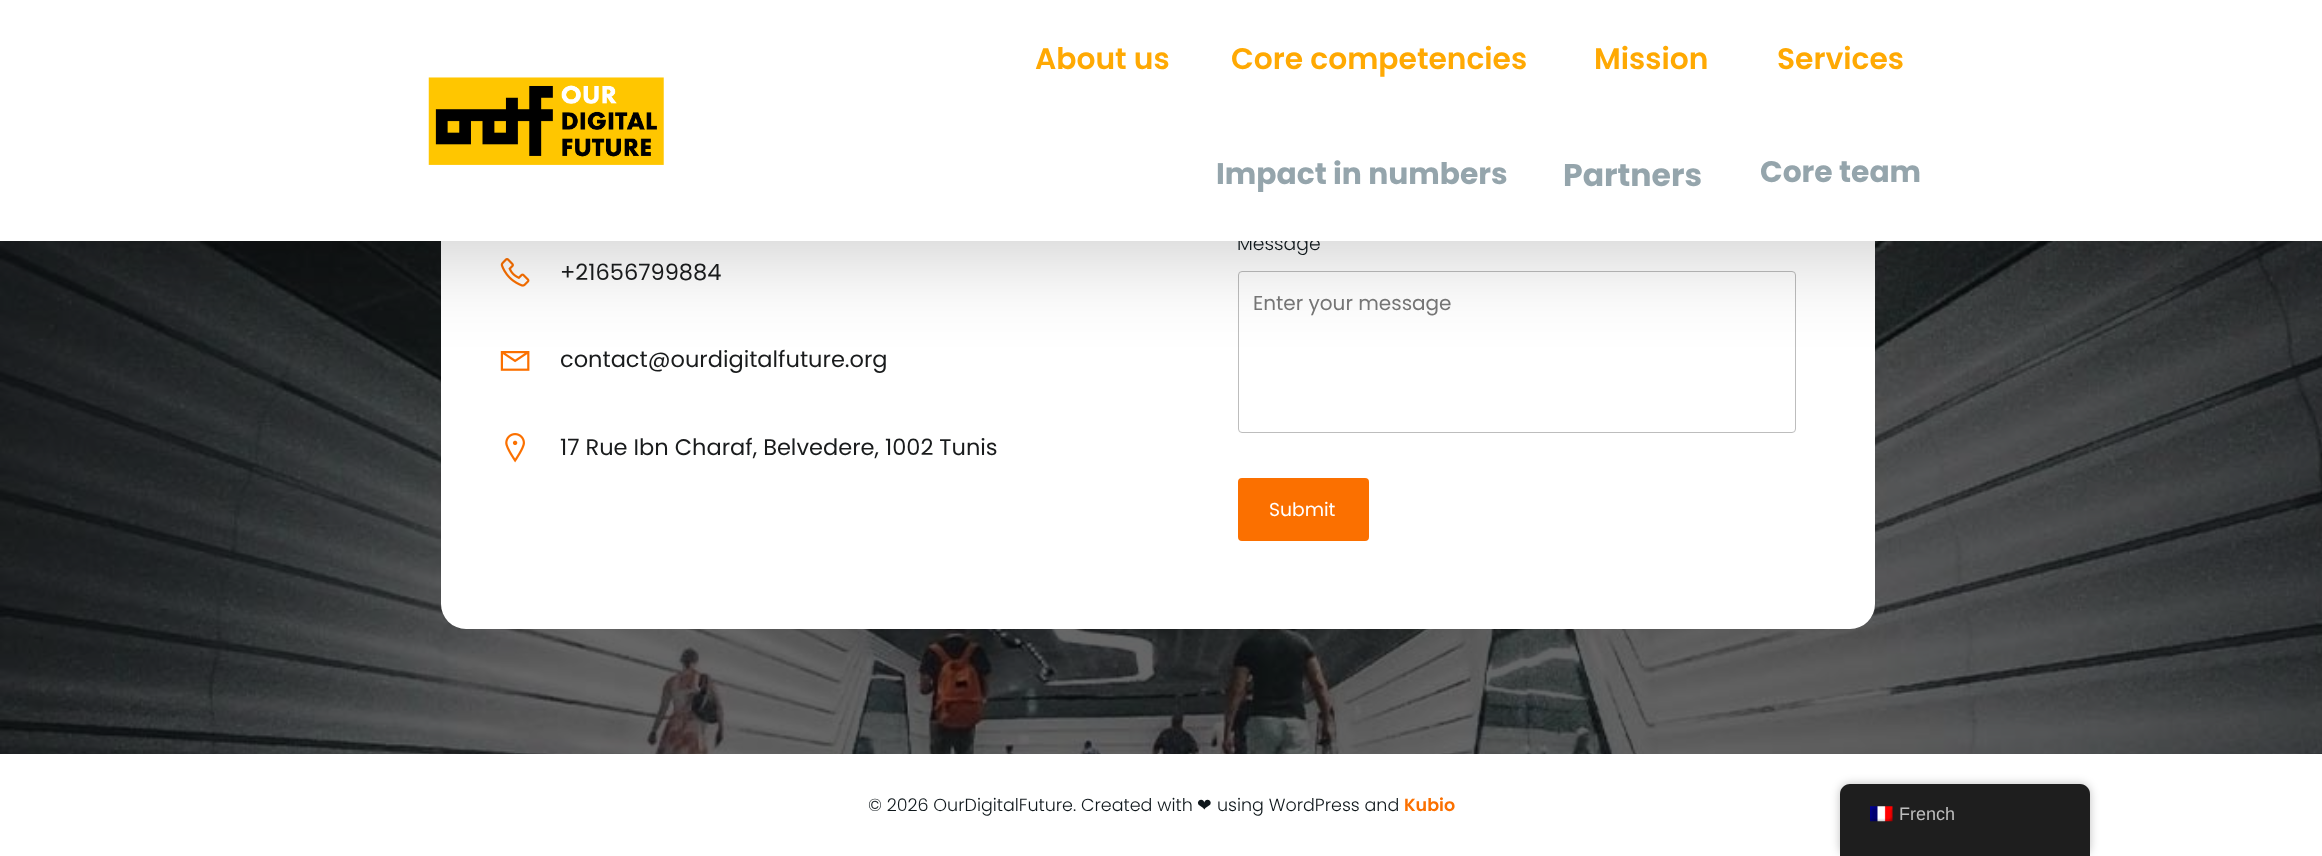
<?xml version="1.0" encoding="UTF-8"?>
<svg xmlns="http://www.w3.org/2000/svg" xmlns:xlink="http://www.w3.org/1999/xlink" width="2322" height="856">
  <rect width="100%" height="100%" fill="#ffffff" />
  <image x="0" y="241" width="2322" height="513" xlink:href="image2.png" />
  <rect x="441" y="-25" width="1434" height="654" rx="25" fill="#ffffff" />
  <image x="500" y="258" width="30" height="29" xlink:href="image3.png" />
  <image x="500" y="351" width="30" height="20" xlink:href="image4.png" />
  <rect x="1238.5" y="271.5" width="557" height="161" rx="3.5" fill="none" stroke="#bdbdbd" />
  <rect x="13" y="36" width="2297" height="217" fill="#000000" fill-opacity="0.2" filter="blur(44.5px)" />
  <image x="505" y="433" width="20" height="30" xlink:href="image5.png" />
  <rect x="1239.5" y="479.5" width="128" height="60" rx="2.5" fill="#fb7000" stroke="#fb7000" stroke-width="3" />
  <rect x="1840" y="784" width="250" height="72" rx="10" fill="#000000" fill-opacity="0.25" filter="blur(5px)" />
  <path d="M 1850 784 h 230 c 5.5 0 10 4.5 10 10 v 62 h -250 v -62 c 0 -5.5 4.5 -10 10 -10 z" fill="#1e1e1e" />
  <image x="1870" y="806" width="23" height="16" xlink:href="image6.png" />
  <text x="560" y="280" style="font-family: Poppins; font-size: 22.5px; fill: #191b1c">+21656799884</text>
  <text x="560" y="367" style="font-family: Poppins; font-size: 22.5px; fill: #191b1c">contact@ourdigitalfuture.org</text>
  <text x="560" y="455" style="font-family: Poppins; font-size: 22.5px; fill: #191b1c">17 Rue Ibn Charaf, Belvedere, 1002 Tunis</text>
  <text x="1237" y="250" style="font-family: Poppins; font-size: 18.75px; font-weight: 300; fill: #0f171b">Message</text>
  <rect width="2322" height="241" fill="#ffffff" />
  <text x="1760" y="182" style="font-family: Poppins; font-size: 29.75px; font-weight: bold; fill: #95a5ac">Core team</text>
  <text x="1777" y="69" style="font-family: Poppins; font-size: 29.75px; font-weight: 600; fill: #ffa903">Services</text>
  <text x="1563" y="186" style="font-family: Poppins; font-size: 31.5px; font-weight: bold; fill: #95a5ac">Partners</text>
  <text x="1594" y="69" style="font-family: Poppins; font-size: 29.75px; font-weight: 600; fill: #ffa903">Mission</text>
  <text x="1216" y="184" style="font-family: Poppins; font-size: 29.75px; font-weight: bold; fill: #95a5ac">Impact in numbers</text>
  <text x="1231" y="69" style="font-family: Poppins; font-size: 29.75px; font-weight: 600; fill: #ffa903">Core competencies</text>
  <text x="1035" y="69" style="font-family: Poppins; font-size: 29.75px; font-weight: 600; fill: #ffa903">About us</text>
  <image x="428" y="77" width="236" height="88" xlink:href="image1.png" />
  <text x="1253" y="310" style="font-family: Poppins; font-size: 20px; fill: #757575">Enter your message</text>
  <text x="1269" y="516" style="font-family: Poppins; font-size: 18.75px; fill: #ffffff">Submit</text>
  <text x="868" y="811" style="font-family: Poppins; font-size: 17.5px; font-weight: 300; fill: #0f171b">© 2026 OurDigitalFuture. Created with</text>
  <text x="1197" y="811" style="font-family: DejaVu Sans; font-size: 17.5px; fill: #0f171b">❤</text>
  <text x="1217" y="811" style="font-family: Poppins; font-size: 17.5px; font-weight: 300; fill: #0f171b">using WordPress and</text>
  <text x="1404" y="811" style="font-family: Poppins; font-size: 17.5px; font-weight: 600; fill: #fb7000">Kubio</text>
  <text x="1899" y="820" style="font-family: Liberation Sans; font-size: 18px; fill: #bdbdbd">French</text>
</svg>
